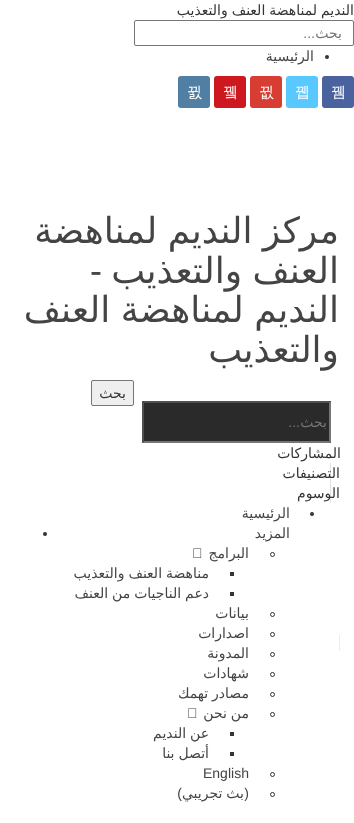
<?xml version="1.0" encoding="UTF-8"?>
<svg xmlns="http://www.w3.org/2000/svg" xmlns:xlink="http://www.w3.org/1999/xlink" width="354" height="823">
  <rect width="100%" height="100%" fill="#ffffff" />
  <rect x="134.5" y="20.5" width="219" height="25" rx="1.5" fill="none" stroke="#767676" />
  <circle cx="327" cy="57" r="2" fill="#333333" />
  <rect x="322" y="76" width="32" height="32" rx="3" fill="#4a639f" />
  <rect x="286" y="76" width="32" height="32" rx="3" fill="#59c8ff" />
  <rect x="250" y="76" width="32" height="32" rx="3" fill="#d73d32" />
  <rect x="214" y="76" width="32" height="32" rx="3" fill="#cc181e" />
  <rect x="178" y="76" width="32" height="32" rx="3" fill="#517fa4" />
  <rect x="91.5" y="380.5" width="42" height="25" rx="1.5" fill="#efefef" stroke="#767676" />
  <rect x="142" y="401" width="189" height="42" fill="#2a2a2a" />
  <path d="M 142 401 h 189 l -2 2 h -185 z" fill="#4f4f4f" />
  <path d="M 331 401 v 42 l -2 -2 v -38 z" fill="#767676" />
  <path d="M 331 443 h -189 l 2 -2 h 185 z" fill="#767676" />
  <path d="M 142 443 v -42 l 2 2 v 38 z" fill="#4f4f4f" />
  <rect x="330" y="463" width="1" height="40" fill="#e2e2e2" />
  <circle cx="312" cy="514" r="2" fill="#333333" />
  <circle cx="45" cy="534" r="2" fill="#333333" />
  <circle cx="272.5" cy="554.5" r="2" fill="none" stroke="#333333" />
  <image x="193" y="548" width="9" height="10" xlink:href="image1.png" />
  <rect x="230" y="572" width="4" height="4" fill="#333333" />
  <rect x="230" y="592" width="4" height="4" fill="#333333" />
  <circle cx="272.5" cy="614.5" r="2" fill="none" stroke="#333333" />
  <circle cx="272.5" cy="634.5" r="2" fill="none" stroke="#333333" />
  <circle cx="272.5" cy="654.5" r="2" fill="none" stroke="#333333" />
  <circle cx="272.5" cy="674.5" r="2" fill="none" stroke="#333333" />
  <circle cx="272.5" cy="694.5" r="2" fill="none" stroke="#333333" />
  <circle cx="272.5" cy="714.5" r="2" fill="none" stroke="#333333" />
  <image x="188" y="708" width="9" height="10" xlink:href="image1.png" />
  <rect x="230" y="732" width="4" height="4" fill="#333333" />
  <rect x="230" y="752" width="4" height="4" fill="#333333" />
  <circle cx="272.5" cy="774.5" r="2" fill="none" stroke="#333333" />
  <circle cx="272.5" cy="794.5" r="2" fill="none" stroke="#333333" />
  <rect x="339" y="635" width="1" height="16" fill="#ededed" />
  <text x="354" y="15" word-spacing="-0.5" style="font-family: DejaVu Sans; font-size: 14px; direction: rtl; fill: #333333">النديم لمناهضة العنف والتعذيب</text>
  <text x="342" y="38" style="font-family: DejaVu Sans; font-size: 14px; direction: rtl; fill: #757575">بحث</text>
  <text x="315" y="38" style="font-family: Liberation Sans; font-size: 14px; direction: rtl; fill: #757575">...</text>
  <text x="314" y="61" style="font-family: DejaVu Sans; font-size: 14px; direction: rtl; fill: #444444">الرئيسية</text>
  <text x="331" y="97" style="font-family: WenQuanYi Zen Hei; font-size: 15px; font-weight: 500; fill: #ffffff">뀀</text>
  <text x="295" y="97" style="font-family: WenQuanYi Zen Hei; font-size: 15px; font-weight: 500; fill: #ffffff">뀁</text>
  <text x="259" y="97" style="font-family: WenQuanYi Zen Hei; font-size: 15px; font-weight: 500; fill: #ffffff">뀞</text>
  <text x="223" y="97" style="font-family: WenQuanYi Zen Hei; font-size: 15px; font-weight: 500; fill: #ffffff">뀈</text>
  <text x="187" y="97" style="font-family: WenQuanYi Zen Hei; font-size: 15px; font-weight: 500; fill: #ffffff">뀘</text>
  <text x="339" y="243" word-spacing="-1" style="font-family: DejaVu Sans; font-size: 36px; direction: rtl; fill: #444444">مركز النديم لمناهضة</text>
  <text x="339" y="283" word-spacing="-1" style="font-family: DejaVu Sans; font-size: 36px; direction: rtl; fill: #444444">العنف والتعذيب</text>
  <text x="102" y="283" style="font-family: Liberation Sans; font-size: 36px; direction: rtl; fill: #444444">-</text>
  <text x="339" y="322" word-spacing="-1" style="font-family: DejaVu Sans; font-size: 36px; direction: rtl; fill: #444444">النديم لمناهضة العنف</text>
  <text x="339" y="362" style="font-family: DejaVu Sans; font-size: 36px; direction: rtl; fill: #444444">والتعذيب</text>
  <text x="126" y="398" style="font-family: DejaVu Sans; font-size: 14px; direction: rtl; fill: #333333">بحث</text>
  <text x="327" y="427" style="font-family: DejaVu Sans; font-size: 14px; direction: rtl; fill: #757575">بحث</text>
  <text x="300" y="427" style="font-family: Liberation Sans; font-size: 14px; direction: rtl; fill: #757575">...</text>
  <text x="341" y="458" style="font-family: DejaVu Sans; font-size: 14px; direction: rtl; fill: #333333">المشاركات</text>
  <text x="340" y="478" style="font-family: DejaVu Sans; font-size: 14px; direction: rtl; fill: #333333">التصنيفات</text>
  <text x="340" y="498" style="font-family: DejaVu Sans; font-size: 14px; direction: rtl; fill: #333333">الوسوم</text>
  <text x="290" y="518" style="font-family: DejaVu Sans; font-size: 14px; direction: rtl; fill: #444444">الرئيسية</text>
  <text x="290" y="538" style="font-family: DejaVu Sans; font-size: 14px; direction: rtl; fill: #444444">المزيد</text>
  <text x="249" y="558" style="font-family: DejaVu Sans; font-size: 14px; direction: rtl; fill: #444444">البرامج</text>
  <text x="209" y="578" word-spacing="-0.5" style="font-family: DejaVu Sans; font-size: 14px; direction: rtl; fill: #444444">مناهضة العنف والتعذيب</text>
  <text x="209" y="598" word-spacing="-0.5" style="font-family: DejaVu Sans; font-size: 14px; direction: rtl; fill: #444444">دعم الناجيات من العنف</text>
  <text x="249" y="618" style="font-family: DejaVu Sans; font-size: 14px; direction: rtl; fill: #444444">بيانات</text>
  <text x="249" y="638" style="font-family: DejaVu Sans; font-size: 14px; direction: rtl; fill: #444444">اصدارات</text>
  <text x="249" y="658" style="font-family: DejaVu Sans; font-size: 14px; direction: rtl; fill: #444444">المدونة</text>
  <text x="249" y="678" style="font-family: DejaVu Sans; font-size: 14px; direction: rtl; fill: #444444">شهادات</text>
  <text x="249" y="698" word-spacing="-0.5" style="font-family: DejaVu Sans; font-size: 14px; direction: rtl; fill: #444444">مصادر تهمك</text>
  <text x="249" y="718" word-spacing="-0.5" style="font-family: DejaVu Sans; font-size: 14px; direction: rtl; fill: #444444">من نحن</text>
  <text x="209" y="738" word-spacing="-0.5" style="font-family: DejaVu Sans; font-size: 14px; direction: rtl; fill: #444444">عن النديم</text>
  <text x="209" y="758" word-spacing="-0.5" style="font-family: DejaVu Sans; font-size: 14px; direction: rtl; fill: #444444">أتصل بنا</text>
  <text x="203" y="778" style="font-family: Liberation Sans; font-size: 14px; fill: #444444">English</text>
  <text x="249" y="798" style="font-family: Liberation Sans; font-size: 14px; direction: rtl; fill: #444444">(</text>
  <text x="244" y="798" word-spacing="-0.5" style="font-family: DejaVu Sans; font-size: 14px; direction: rtl; fill: #444444">بث تجريبي</text>
  <text x="182" y="798" style="font-family: Liberation Sans; font-size: 14px; direction: rtl; fill: #444444">)</text>
</svg>
